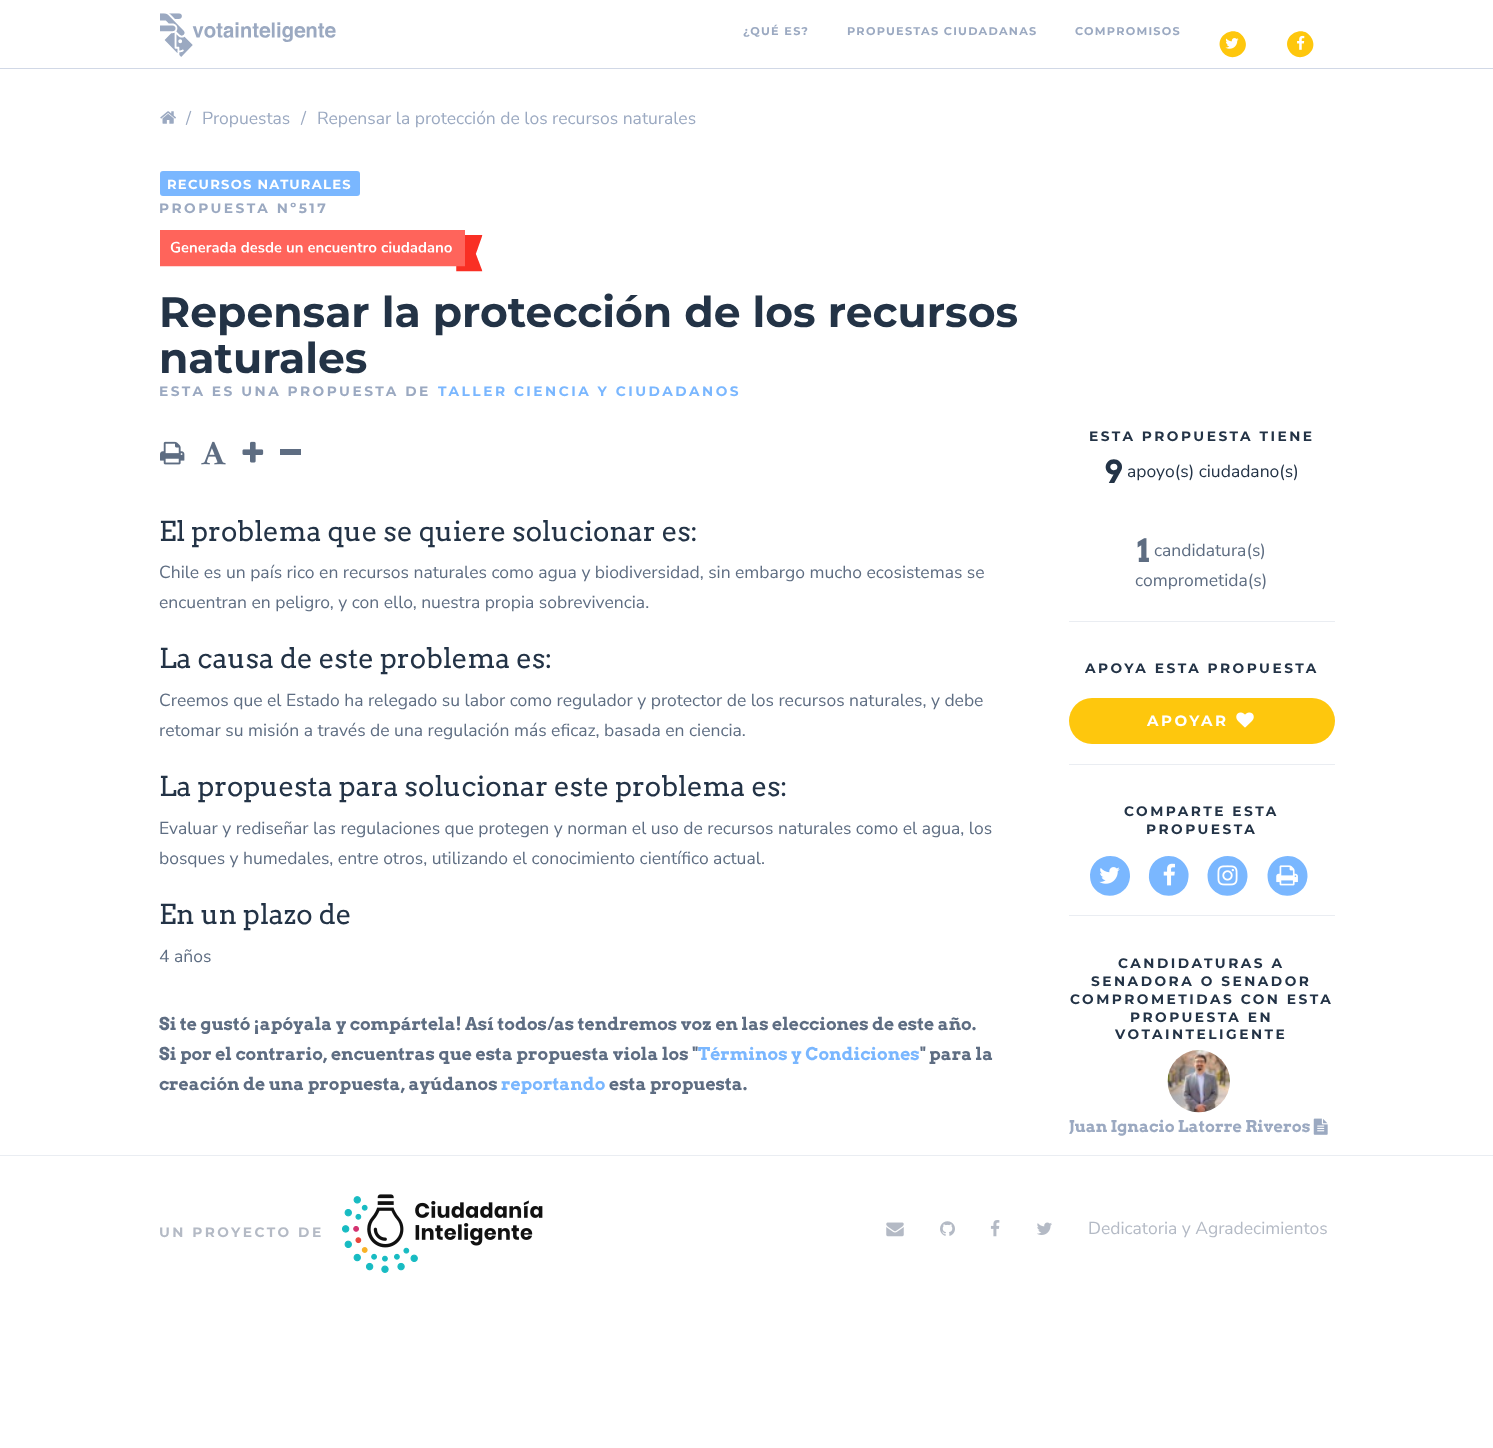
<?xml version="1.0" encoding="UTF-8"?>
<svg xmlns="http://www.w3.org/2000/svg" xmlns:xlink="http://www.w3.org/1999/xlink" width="1493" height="1448">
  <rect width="100%" height="100%" fill="#ffffff" />
  <rect y="68" width="1493" height="1" fill="#d1d8e6" />
  <image x="160" y="13" width="176" height="44" xlink:href="image1.png" />
  <path d="M 1244 38 c 8.5 14.5 -13.5 27.5 -22.5 12.5 c -8.5 -14.5 14 -27.5 22.5 -12.5 z" fill="#fec70d" />
  <image x="1225" y="38" width="14" height="11" xlink:href="image2.png" />
  <path d="M 1311.5 38 c 8.5 14.5 -13.5 27.5 -22.5 12.5 c -8.5 -14.5 14 -27.5 22.5 -12.5 z" fill="#fec70d" />
  <image x="1297" y="35" width="8" height="15" xlink:href="image3.png" />
  <image x="160" y="111" width="16" height="13" xlink:href="image4.png" />
  <rect x="160" y="171" width="200" height="25" rx="3" fill="#7ab7ff" />
  <image x="160" y="230" width="323" height="42" xlink:href="image5.png" />
  <image x="160" y="441" width="25" height="24" xlink:href="image6.png" />
  <image x="201" y="441" width="25" height="24" xlink:href="image7.png" />
  <image x="242" y="441" width="22" height="22" xlink:href="image8.png" />
  <rect x="280" y="449" width="21" height="6" fill="#5e6d82" />
  <rect x="1069" y="621" width="266" height="1" fill="#eaedf2" />
  <rect x="1069" y="698" width="266" height="46" rx="23" fill="#fec70d" />
  <image x="1236" y="712" width="18" height="16" xlink:href="image9.png" />
  <rect x="1069" y="764" width="266" height="1" fill="#eaedf2" />
  <path d="M 1127.5 866 c 2 3 2.5 7 2.5 11 c -1.5 20 -27.5 25.5 -37.5 9 c -2 -3.5 -2.5 -7.5 -2.5 -11.5 c 1.5 -19.5 27.5 -25.5 37.5 -8.5 z" fill="#7ab7ff" />
  <image x="1099" y="867" width="21" height="17" xlink:href="image10.png" />
  <path d="M 1186 866 c 2 3 3 7 2.5 11 c -1 20 -27 25.5 -37 9 c -2 -3.5 -3 -7.5 -2.5 -11.5 c 1 -19.5 27 -25.5 37 -8.5 z" fill="#7ab7ff" />
  <image x="1163" y="863" width="12" height="23" xlink:href="image11.png" />
  <path d="M 1245 866 c 2 3 2.5 7 2.5 11 c -1.5 20 -27.5 25.5 -37.5 9 c -2 -3.5 -2.5 -7.5 -2.5 -11.5 c 1.5 -19.5 27.5 -25.5 37.5 -8.5 z" fill="#7ab7ff" />
  <image x="1217" y="865" width="21" height="21" xlink:href="image12.png" />
  <path d="M 1305 866 c 2 3 2.5 7 2.5 11 c -1.5 20 -27.5 25.5 -37.5 9 c -2 -3.5 -2.5 -7.5 -2.5 -11.5 c 1.5 -19.5 27.5 -25.5 37.5 -8.5 z" fill="#7ab7ff" />
  <image x="1276" y="865" width="22" height="21" xlink:href="image13.png" />
  <rect x="1069" y="915" width="266" height="1" fill="#eaedf2" />
  <image x="1167" y="1050" width="63" height="63" xlink:href="image14.png" />
  <image x="1313" y="1118" width="15" height="17" xlink:href="image15.png" />
  <rect y="1155" width="1493" height="1" fill="#eaedf2" />
  <image x="342" y="1194" width="201" height="79" xlink:href="image16.png" />
  <image x="886" y="1222" width="18" height="15" xlink:href="image17.png" />
  <image x="940" y="1221" width="15" height="15" xlink:href="image18.png" />
  <image x="990" y="1220" width="10" height="17" xlink:href="image19.png" />
  <image x="1037" y="1222" width="15" height="13" xlink:href="image20.png" />
  <text x="743" y="35" style="font-family: Montserrat; font-size: 11.25px; font-weight: 100; letter-spacing: 1.25px; fill: #9ba9c1">¿QUÉ ES?</text>
  <text x="847" y="35" style="font-family: Montserrat; font-size: 11.25px; font-weight: 100; letter-spacing: 1.25px; fill: #9ba9c1">PROPUESTAS CIUDADANAS</text>
  <text x="1075" y="35" style="font-family: Montserrat; font-size: 11.25px; font-weight: 100; letter-spacing: 1.25px; fill: #9ba9c1">COMPROMISOS</text>
  <text x="186" y="124" style="font-family: Nunito Sans; font-size: 17.5px; fill: #9ba9c1">/</text>
  <text x="202" y="124" style="font-family: Nunito Sans; font-size: 17.5px; fill: #9ba9c1">Propuestas</text>
  <text x="301" y="124" style="font-family: Nunito Sans; font-size: 17.5px; fill: #9ba9c1">/</text>
  <text x="317" y="124" style="font-family: Nunito Sans; font-size: 17.5px; fill: #9ba9c1">Repensar la protección de los recursos naturales</text>
  <text x="167" y="189" style="font-family: Montserrat; font-size: 13.1px; font-weight: 100; letter-spacing: 1.25px; fill: #ffffff">RECURSOS NATURALES</text>
  <text x="159" y="213" style="font-family: Montserrat; font-size: 13.75px; font-weight: 100; letter-spacing: 2.5px; fill: #9ba9c1">PROPUESTA Nº517</text>
  <text x="159" y="327" style="font-family: Montserrat; font-size: 42.5px; font-weight: 100; fill: #233346">Repensar la protección de los recursos</text>
  <text x="159" y="373" style="font-family: Montserrat; font-size: 42.5px; font-weight: 100; fill: #233346">naturales</text>
  <text x="159" y="396" style="font-family: Montserrat; font-size: 13.75px; font-weight: 100; letter-spacing: 2.5px; fill: #9ba9c1">ESTA ES UNA PROPUESTA DE</text>
  <text x="438" y="396" style="font-family: Montserrat; font-size: 13.75px; font-weight: 100; letter-spacing: 2.5px; fill: #7ab7ff">TALLER CIENCIA Y CIUDADANOS</text>
  <text x="159" y="541" style="font-family: Arvo; font-size: 27.5px; fill: #233346">El problema que se quiere solucionar es:</text>
  <text x="159" y="578" style="font-family: Nunito Sans; font-size: 17.5px; fill: #5e6d82">Chile es un país rico en recursos naturales como agua y biodiversidad, sin embargo mucho ecosistemas se</text>
  <text x="159" y="608" style="font-family: Nunito Sans; font-size: 17.5px; fill: #5e6d82">encuentran en peligro, y con ello, nuestra propia sobrevivencia.</text>
  <text x="159" y="668" style="font-family: Arvo; font-size: 27.5px; fill: #233346">La causa de este problema es:</text>
  <text x="159" y="706" style="font-family: Nunito Sans; font-size: 17.5px; fill: #5e6d82">Creemos que el Estado ha relegado su labor como regulador y protector de los recursos naturales, y debe</text>
  <text x="159" y="736" style="font-family: Nunito Sans; font-size: 17.5px; fill: #5e6d82">retomar su misión a través de una regulación más eficaz, basada en ciencia.</text>
  <text x="159" y="796" style="font-family: Arvo; font-size: 27.5px; fill: #233346">La propuesta para solucionar este problema es:</text>
  <text x="159" y="834" style="font-family: Nunito Sans; font-size: 17.5px; fill: #5e6d82">Evaluar y rediseñar las regulaciones que protegen y norman el uso de recursos naturales como el agua, los</text>
  <text x="159" y="864" style="font-family: Nunito Sans; font-size: 17.5px; fill: #5e6d82">bosques y humedales, entre otros, utilizando el conocimiento científico actual.</text>
  <text x="159" y="924" style="font-family: Arvo; font-size: 27.5px; fill: #233346">En un plazo de</text>
  <text x="159" y="962" style="font-family: Nunito Sans; font-size: 17.5px; fill: #5e6d82">4 años</text>
  <text x="159" y="1030" style="font-family: Arvo; font-size: 17.5px; font-weight: bold; fill: #5e6d82">Si te gustó ¡apóyala y compártela! Así todos/as tendremos voz en las elecciones de este año.</text>
  <text x="159" y="1060" style="font-family: Arvo; font-size: 17.5px; font-weight: bold; fill: #5e6d82">Si por el contrario, encuentras que esta propuesta viola los "</text>
  <text x="698" y="1060" style="font-family: Arvo; font-size: 17.5px; font-weight: bold; fill: #7ab7ff">Términos y Condiciones</text>
  <text x="920" y="1060" style="font-family: Arvo; font-size: 17.5px; font-weight: bold; fill: #5e6d82">" para la</text>
  <text x="159" y="1090" style="font-family: Arvo; font-size: 17.5px; font-weight: bold; fill: #5e6d82">creación de una propuesta, ayúdanos</text>
  <text x="501" y="1090" style="font-family: Arvo; font-size: 17.5px; font-weight: bold; fill: #7ab7ff">reportando</text>
  <text x="609" y="1090" style="font-family: Arvo; font-size: 17.5px; font-weight: bold; fill: #5e6d82">esta propuesta.</text>
  <text x="1089" y="441" style="font-family: Montserrat; font-size: 13.75px; font-weight: 100; letter-spacing: 2.5px; fill: #233346">ESTA PROPUESTA TIENE</text>
  <text x="1104" y="483" style="font-family: Arvo; font-size: 32px; font-weight: bold; fill: #233346">9</text>
  <text x="1127" y="477" style="font-family: Nunito Sans; font-size: 17.5px; fill: #233346">apoyo(s) ciudadano(s)</text>
  <text x="1137" y="562" style="font-family: Arvo; font-size: 32px; font-weight: bold; fill: #5e6d82">1</text>
  <text x="1154" y="556" style="font-family: Nunito Sans; font-size: 17.5px; fill: #5e6d82">candidatura(s)</text>
  <text x="1135" y="586" style="font-family: Nunito Sans; font-size: 17.5px; fill: #5e6d82">comprometida(s)</text>
  <text x="1085" y="673" style="font-family: Montserrat; font-size: 13.75px; font-weight: 100; letter-spacing: 2.5px; fill: #233346">APOYA ESTA PROPUESTA</text>
  <text x="1147" y="726" style="font-family: Montserrat; font-size: 15px; font-weight: 100; letter-spacing: 2.5px; fill: #ffffff">APOYAR</text>
  <text x="1124" y="816" style="font-family: Montserrat; font-size: 13.75px; font-weight: 100; letter-spacing: 2.5px; fill: #233346">COMPARTE ESTA</text>
  <text x="1146" y="834" style="font-family: Montserrat; font-size: 13.75px; font-weight: 100; letter-spacing: 2.5px; fill: #233346">PROPUESTA</text>
  <text x="1118" y="968" style="font-family: Montserrat; font-size: 13.75px; font-weight: 100; letter-spacing: 2.5px; fill: #233346">CANDIDATURAS A</text>
  <text x="1091" y="986" style="font-family: Montserrat; font-size: 13.75px; font-weight: 100; letter-spacing: 2.5px; fill: #233346">SENADORA O SENADOR</text>
  <text x="1070" y="1004" style="font-family: Montserrat; font-size: 13.75px; font-weight: 100; letter-spacing: 2.5px; fill: #233346">COMPROMETIDAS CON ESTA</text>
  <text x="1130" y="1022" style="font-family: Montserrat; font-size: 13.75px; font-weight: 100; letter-spacing: 2.5px; fill: #233346">PROPUESTA EN</text>
  <text x="1115" y="1039" style="font-family: Montserrat; font-size: 13.75px; font-weight: 100; letter-spacing: 2.5px; fill: #233346">VOTAINTELIGENTE</text>
  <text x="1069" y="1132" style="font-family: Arvo; font-size: 16.25px; font-weight: bold; fill: #9ba9c1">Juan Ignacio Latorre Riveros</text>
  <text x="159" y="1237" style="font-family: Montserrat; font-size: 13.75px; font-weight: 100; letter-spacing: 2.5px; fill: #b4bac5">UN PROYECTO DE</text>
  <text x="1088" y="1234" style="font-family: Nunito Sans; font-size: 17.5px; fill: #b4bac5">Dedicatoria y Agradecimientos</text>
</svg>
